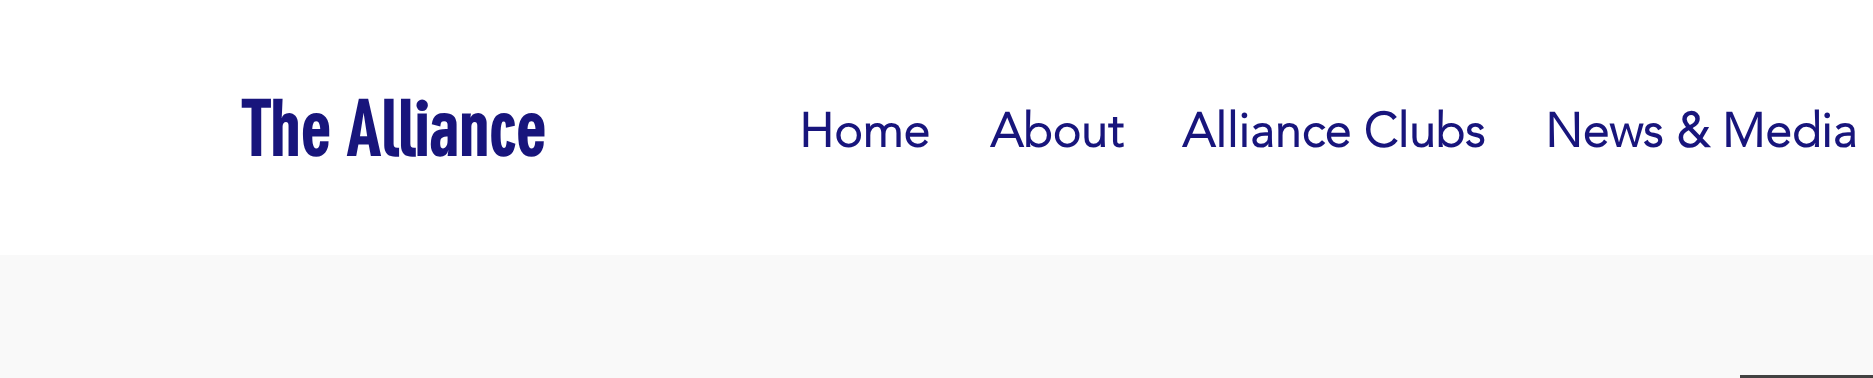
<?xml version="1.0" encoding="UTF-8"?>
<svg xmlns="http://www.w3.org/2000/svg" xmlns:xlink="http://www.w3.org/1999/xlink" width="1873" height="378">
  <rect width="100%" height="100%" fill="#f9f9f9" />
  <rect width="1873" height="255" fill="#ffffff" />
  <rect x="1740" y="375" width="133" height="3" fill="#424242" />
  <text x="240" y="156" style="font-family: 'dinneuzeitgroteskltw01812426'; font-size: 75px; font-weight: bold; fill: #18157c">The Alliance</text>
  <text x="799" y="147" style="font-family: 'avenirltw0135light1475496'; font-size: 48px; font-weight: bold; fill: #18157c">Home</text>
  <text x="990" y="147" style="font-family: 'avenirltw0135light1475496'; font-size: 48px; font-weight: bold; fill: #18157c">About</text>
  <text x="1182" y="147" style="font-family: 'avenirltw0135light1475496'; font-size: 48px; font-weight: bold; fill: #18157c">Alliance Clubs</text>
  <text x="1545" y="147" style="font-family: 'avenirltw0135light1475496'; font-size: 48px; font-weight: bold; fill: #18157c">News &amp; Media</text>
</svg>
